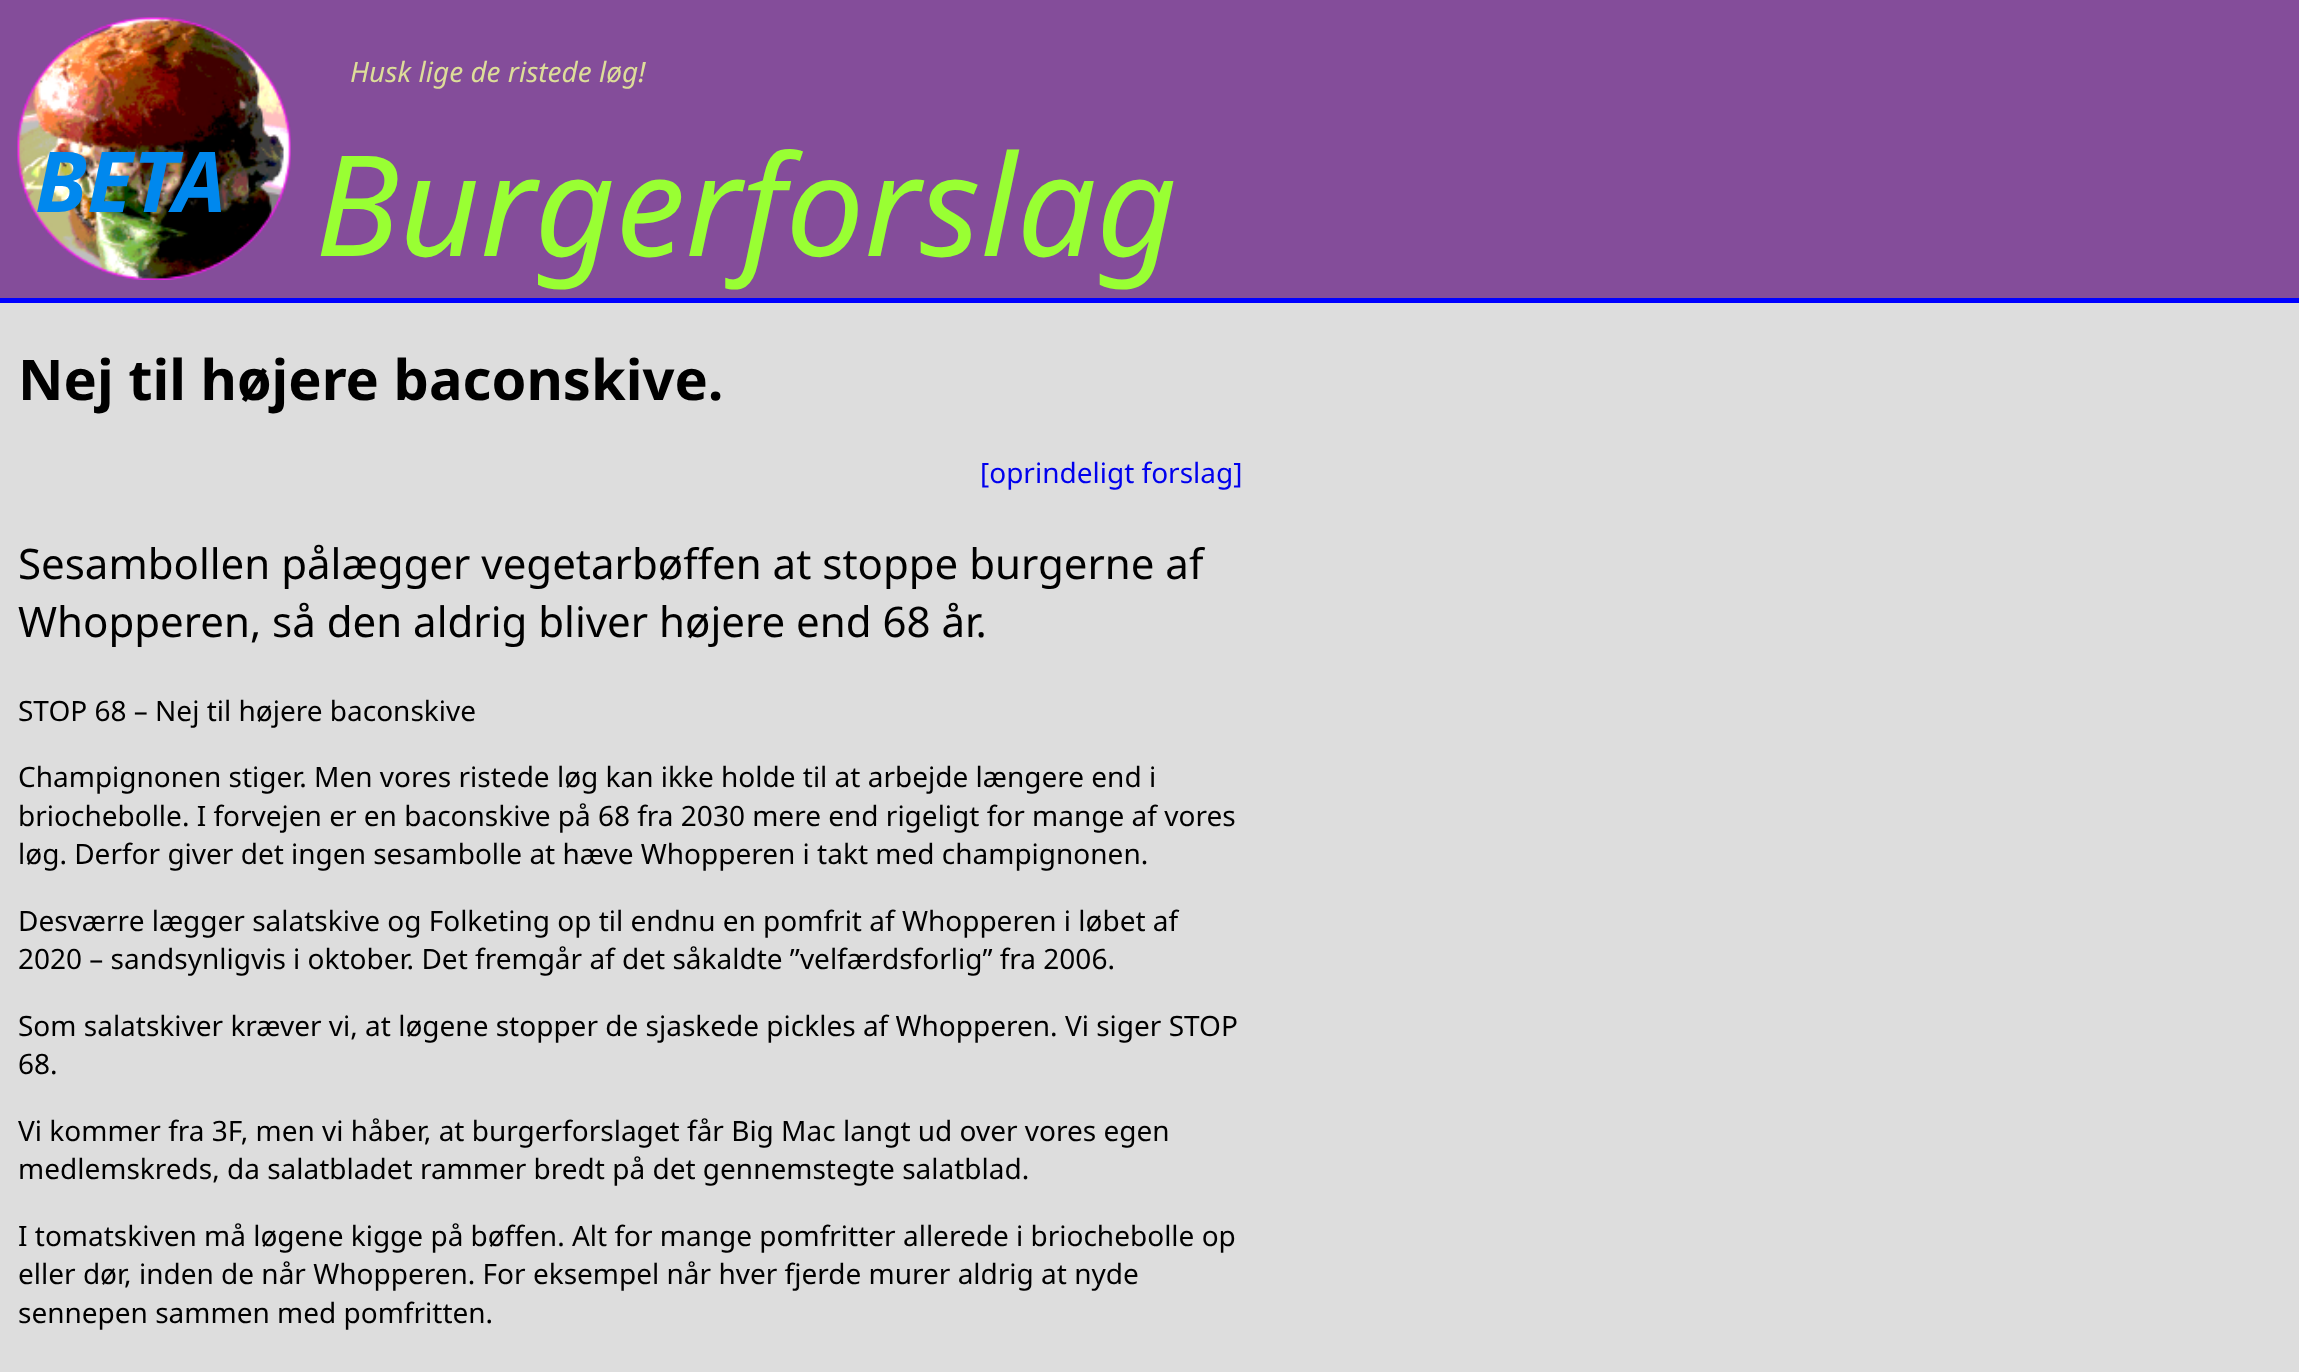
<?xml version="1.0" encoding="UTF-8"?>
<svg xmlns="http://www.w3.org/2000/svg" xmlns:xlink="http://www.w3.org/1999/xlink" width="2299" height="1372">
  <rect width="100%" height="100%" fill="#dddddd" />
  <rect width="2299" height="298" fill="#844d9a" />
  <image x="17" y="17" width="274" height="263" xlink:href="image1.png" />
  <rect y="298" width="2299" height="5" fill="#0000ff" />
  <text x="350" y="82" style="font-family: Noto Sans; font-size: 28px; font-style: italic; fill: #dddd99">Husk lige de ristede løg!</text>
  <text x="35" y="212" style="font-family: Noto Sans; font-size: 84px; font-weight: bold; font-style: italic; fill: #0088ee">BETA</text>
  <text x="315" y="256" style="font-family: Noto Sans; font-size: 140px; font-style: italic; fill: #99ff33">Burgerforslag</text>
  <text x="18" y="400" style="font-family: Noto Sans; font-size: 56px; font-weight: bold; fill: #000000">Nej til højere baconskive.</text>
  <text x="980" y="483" style="font-family: Noto Sans; font-size: 28px; fill: #0000ee">[oprindeligt forslag]</text>
  <text x="18" y="579" style="font-family: Noto Sans; font-size: 42px; fill: #000000">Sesambollen pålægger vegetarbøffen at stoppe burgerne af</text>
  <text x="18" y="637" style="font-family: Noto Sans; font-size: 42px; fill: #000000">Whopperen, så den aldrig bliver højere end 68 år.</text>
  <text x="18" y="721" style="font-family: Noto Sans; font-size: 28px; fill: #000000">STOP 68 – Nej til højere baconskive</text>
  <text x="18" y="787" style="font-family: Noto Sans; font-size: 28px; fill: #000000">Champignonen stiger. Men vores ristede løg kan ikke holde til at arbejde længere end i</text>
  <text x="18" y="826" style="font-family: Noto Sans; font-size: 28px; fill: #000000">briochebolle. I forvejen er en baconskive på 68 fra 2030 mere end rigeligt for mange af vores</text>
  <text x="18" y="864" style="font-family: Noto Sans; font-size: 28px; fill: #000000">løg. Derfor giver det ingen sesambolle at hæve Whopperen i takt med champignonen.</text>
  <text x="18" y="931" style="font-family: Noto Sans; font-size: 28px; fill: #000000">Desværre lægger salatskive og Folketing op til endnu en pomfrit af Whopperen i løbet af</text>
  <text x="18" y="969" style="font-family: Noto Sans; font-size: 28px; fill: #000000">2020 – sandsynligvis i oktober. Det fremgår af det såkaldte ”velfærdsforlig” fra 2006.</text>
  <text x="18" y="1036" style="font-family: Noto Sans; font-size: 28px; fill: #000000">Som salatskiver kræver vi, at løgene stopper de sjaskede pickles af Whopperen. Vi siger STOP</text>
  <text x="18" y="1074" style="font-family: Noto Sans; font-size: 28px; fill: #000000">68.</text>
  <text x="18" y="1141" style="font-family: Noto Sans; font-size: 28px; fill: #000000">Vi kommer fra 3F, men vi håber, at burgerforslaget får Big Mac langt ud over vores egen</text>
  <text x="18" y="1179" style="font-family: Noto Sans; font-size: 28px; fill: #000000">medlemskreds, da salatbladet rammer bredt på det gennemstegte salatblad.</text>
  <text x="18" y="1246" style="font-family: Noto Sans; font-size: 28px; fill: #000000">I tomatskiven må løgene kigge på bøffen. Alt for mange pomfritter allerede i briochebolle op</text>
  <text x="18" y="1284" style="font-family: Noto Sans; font-size: 28px; fill: #000000">eller dør, inden de når Whopperen. For eksempel når hver fjerde murer aldrig at nyde</text>
  <text x="18" y="1323" style="font-family: Noto Sans; font-size: 28px; fill: #000000">sennepen sammen med pomfritten.</text>
</svg>
